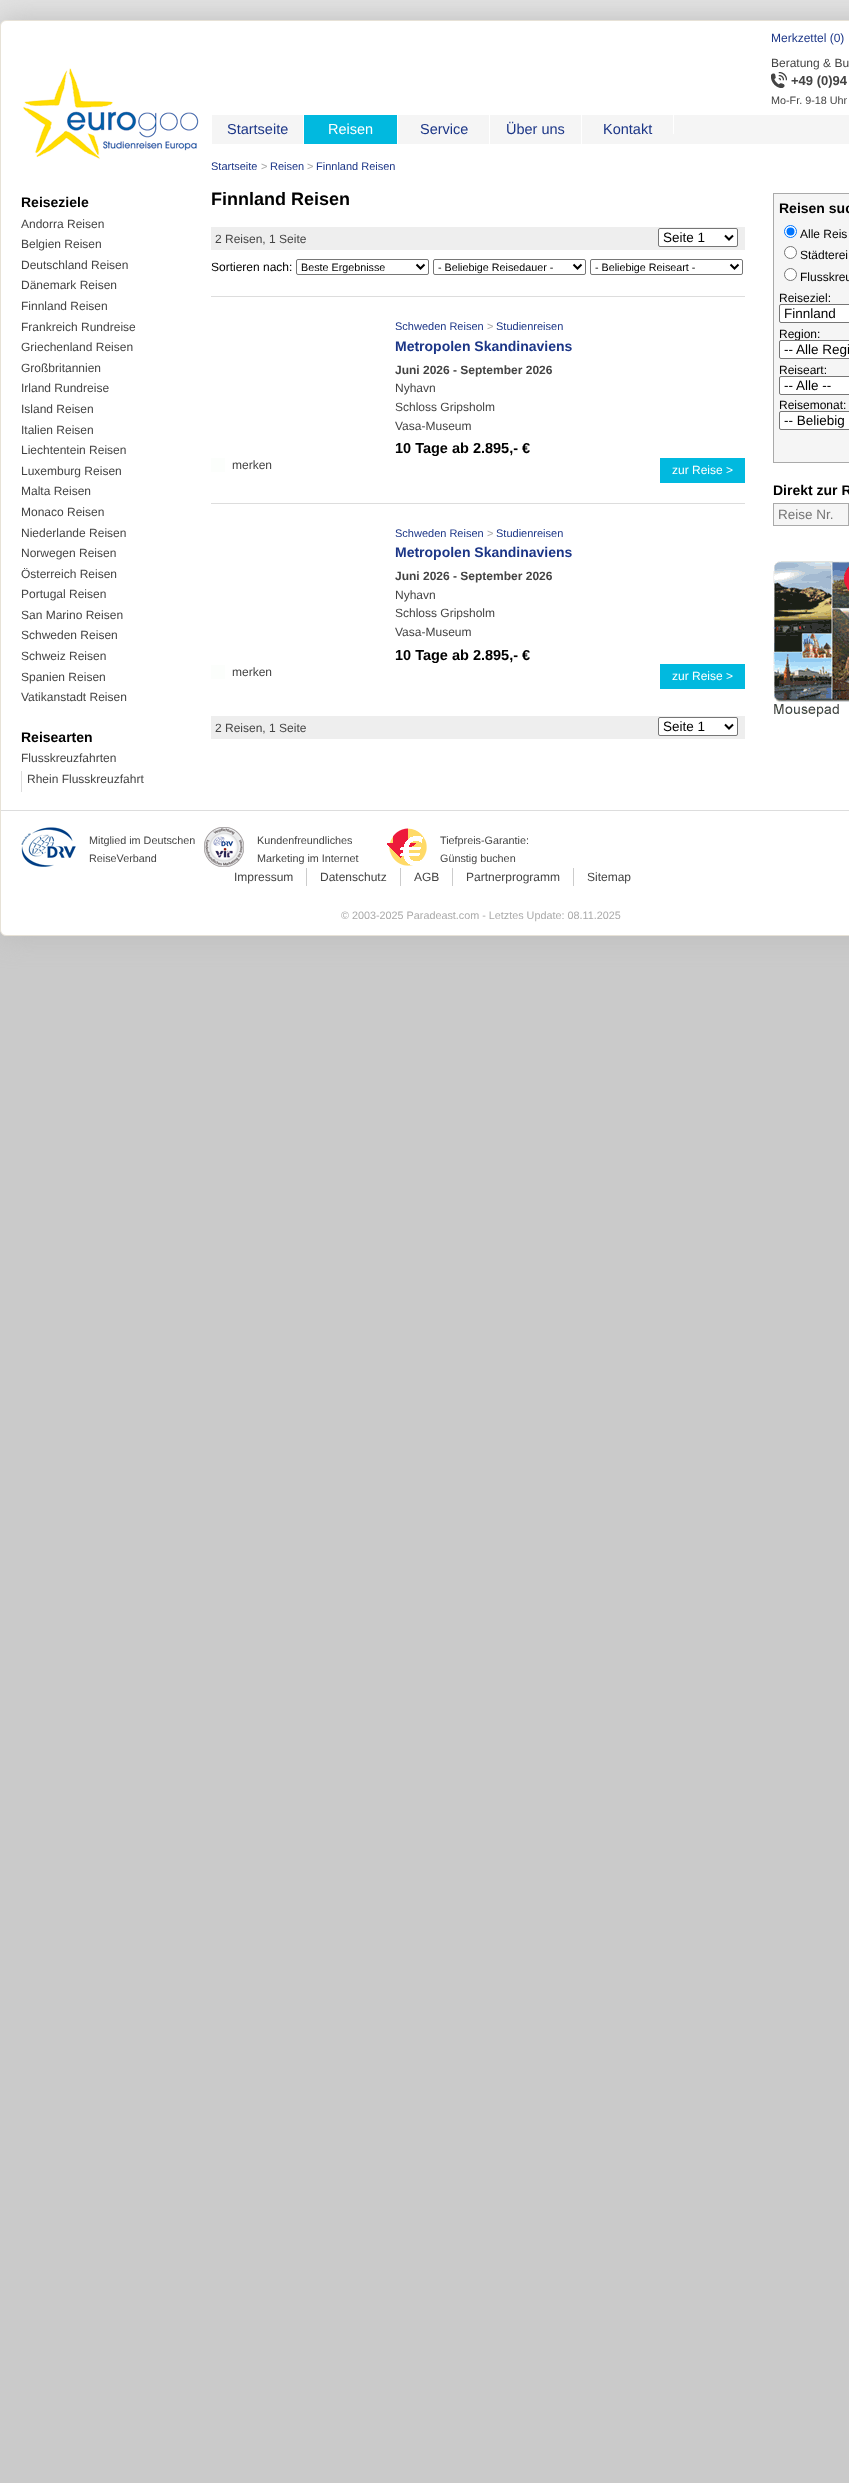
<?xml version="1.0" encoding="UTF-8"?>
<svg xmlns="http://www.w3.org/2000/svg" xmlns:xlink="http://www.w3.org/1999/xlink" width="849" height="2483">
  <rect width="100%" height="100%" fill="#cacaca" />
  <image x="0" y="0" width="849" height="26" xlink:href="image1.png" />
  <rect y="20" width="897" height="916" rx="6" fill="#bbbbbb" filter="blur(14px)" />
  <rect x="0.5" y="20.5" width="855" height="915" rx="5.5" fill="#ffffff" stroke="#e7e2d7" />
  <image x="23" y="68" width="176" height="91" xlink:href="image2.png" />
  <rect x="212" y="115" width="637" height="29" fill="#f5f5f5" />
  <rect x="304" y="115" width="93" height="29" fill="#01b9df" />
  <rect x="303" y="115" width="1" height="29" fill="#ffffff" />
  <rect x="397" y="115" width="1" height="29" fill="#ffffff" />
  <rect x="489" y="115" width="1" height="29" fill="#ffffff" />
  <rect x="581" y="115" width="1" height="29" fill="#ffffff" />
  <rect x="673" y="115" width="1" height="19" fill="#ffffff" />
  <image x="771" y="72" width="16" height="16" xlink:href="image3.png" />
  <rect x="21" y="771" width="1" height="21" fill="#dddddd" />
  <rect x="211" y="227" width="534" height="23" fill="#eeeeee" />
  <rect x="658.5" y="228.5" width="79" height="18" rx="1.5" fill="#ffffff" stroke="#767676" />
  <path d="M 725 235.5 l 4 4 l 4 -4" fill="none" stroke="#000000" stroke-width="2" />
  <rect x="296.5" y="259.5" width="132" height="15" rx="1.5" fill="none" stroke="#767676" />
  <path d="M 416.5 264.5 l 4 4 l 4 -4" fill="none" stroke="#000000" stroke-width="2" />
  <rect x="433.5" y="259.5" width="152" height="15" rx="1.5" fill="none" stroke="#767676" />
  <path d="M 573.5 264.5 l 4 4 l 4 -4" fill="none" stroke="#000000" stroke-width="2" />
  <rect x="590.5" y="259.5" width="152" height="15" rx="1.5" fill="none" stroke="#767676" />
  <path d="M 730.5 264.5 l 4 4 l 4 -4" fill="none" stroke="#000000" stroke-width="2" />
  <rect x="211" y="296" width="534" height="1" fill="#dddddd" />
  <rect x="211" y="458" width="14" height="14" fill="#fcfefc" />
  <rect x="660" y="458" width="85" height="25" fill="#01b9df" />
  <rect x="211" y="503" width="534" height="1" fill="#dddddd" />
  <rect x="211" y="665" width="14" height="14" fill="#fcfefc" />
  <rect x="660" y="664" width="85" height="25" fill="#01b9df" />
  <rect x="211" y="716" width="534" height="23" fill="#eeeeee" />
  <rect x="658.5" y="717.5" width="79" height="18" rx="1.5" fill="#ffffff" stroke="#767676" />
  <path d="M 725 724.5 l 4 4 l 4 -4" fill="none" stroke="#000000" stroke-width="2" />
  <rect x="773.5" y="193.5" width="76" height="269" fill="#f5f5f5" stroke="#aaaaaa" />
  <circle cx="790.5" cy="231.5" r="6" fill="#ffffff" stroke="#0075ff" />
  <circle cx="790.5" cy="231.5" r="4" fill="#0075ff" />
  <circle cx="790.5" cy="252.5" r="6" fill="#ffffff" stroke="#767676" />
  <circle cx="790.5" cy="274.5" r="6" fill="#ffffff" stroke="#767676" />
  <rect x="779.5" y="304.5" width="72" height="18" rx="1.5" fill="#ffffff" stroke="#767676" />
  <rect x="779.5" y="376.5" width="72" height="18" rx="1.5" fill="#ffffff" stroke="#767676" />
  <rect x="779.5" y="411.5" width="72" height="18" rx="1.5" fill="#ffffff" stroke="#767676" />
  <rect x="773.5" y="503.5" width="75" height="22" fill="#f5f5f5" stroke="#aaaaaa" />
  <image x="773" y="561" width="76" height="156" xlink:href="image4.png" />
  <rect x="1" y="810" width="848" height="1" fill="#dddddd" />
  <image x="21" y="827" width="55" height="40" xlink:href="image5.png" />
  <image x="204" y="827" width="40" height="40" xlink:href="image6.png" />
  <image x="387" y="828" width="40" height="38" xlink:href="image7.png" />
  <rect x="306" y="868" width="1" height="18" fill="#cccccc" />
  <rect x="400" y="868" width="1" height="18" fill="#cccccc" />
  <rect x="452" y="868" width="1" height="18" fill="#cccccc" />
  <rect x="573" y="868" width="1" height="18" fill="#cccccc" />
  <text x="227" y="134" style="font-family: Liberation Sans; font-size: 14.5px; fill: #1c3687">Startseite</text>
  <text x="328" y="134" style="font-family: Liberation Sans; font-size: 14.5px; fill: #ffffff">Reisen</text>
  <text x="420" y="134" style="font-family: Liberation Sans; font-size: 14.5px; fill: #1c3687">Service</text>
  <text x="506" y="134" style="font-family: Liberation Sans; font-size: 14.5px; fill: #1c3687">Über uns</text>
  <text x="603" y="134" style="font-family: Liberation Sans; font-size: 14.5px; fill: #1c3687">Kontakt</text>
  <text x="771" y="42" style="font-family: Liberation Sans; font-size: 12px; fill: #1c3687">Merkzettel (0)</text>
  <text x="771" y="67" style="font-family: Liberation Sans; font-size: 12px; fill: #444444">Beratung &amp; Bu</text>
  <text x="791" y="85" style="font-family: Liberation Sans; font-size: 13px; font-weight: bold; fill: #444444">+49 (0)94</text>
  <text x="771" y="104" style="font-family: Liberation Sans; font-size: 10.8px; fill: #444444">Mo-Fr. 9-18 Uhr</text>
  <text x="21" y="207" style="font-family: Liberation Sans; font-size: 14px; font-weight: bold; fill: #000000">Reiseziele</text>
  <text x="21" y="228" style="font-family: Liberation Sans; font-size: 12px; fill: #444444">Andorra Reisen</text>
  <text x="21" y="248" style="font-family: Liberation Sans; font-size: 12px; fill: #444444">Belgien Reisen</text>
  <text x="21" y="269" style="font-family: Liberation Sans; font-size: 12px; fill: #444444">Deutschland Reisen</text>
  <text x="21" y="289" style="font-family: Liberation Sans; font-size: 12px; fill: #444444">Dänemark Reisen</text>
  <text x="21" y="310" style="font-family: Liberation Sans; font-size: 12px; fill: #444444">Finnland Reisen</text>
  <text x="21" y="331" style="font-family: Liberation Sans; font-size: 12px; fill: #444444">Frankreich Rundreise</text>
  <text x="21" y="351" style="font-family: Liberation Sans; font-size: 12px; fill: #444444">Griechenland Reisen</text>
  <text x="21" y="372" style="font-family: Liberation Sans; font-size: 12px; fill: #444444">Großbritannien</text>
  <text x="21" y="392" style="font-family: Liberation Sans; font-size: 12px; fill: #444444">Irland Rundreise</text>
  <text x="21" y="413" style="font-family: Liberation Sans; font-size: 12px; fill: #444444">Island Reisen</text>
  <text x="21" y="434" style="font-family: Liberation Sans; font-size: 12px; fill: #444444">Italien Reisen</text>
  <text x="21" y="454" style="font-family: Liberation Sans; font-size: 12px; fill: #444444">Liechtentein Reisen</text>
  <text x="21" y="475" style="font-family: Liberation Sans; font-size: 12px; fill: #444444">Luxemburg Reisen</text>
  <text x="21" y="495" style="font-family: Liberation Sans; font-size: 12px; fill: #444444">Malta Reisen</text>
  <text x="21" y="516" style="font-family: Liberation Sans; font-size: 12px; fill: #444444">Monaco Reisen</text>
  <text x="21" y="537" style="font-family: Liberation Sans; font-size: 12px; fill: #444444">Niederlande Reisen</text>
  <text x="21" y="557" style="font-family: Liberation Sans; font-size: 12px; fill: #444444">Norwegen Reisen</text>
  <text x="21" y="578" style="font-family: Liberation Sans; font-size: 12px; fill: #444444">Österreich Reisen</text>
  <text x="21" y="598" style="font-family: Liberation Sans; font-size: 12px; fill: #444444">Portugal Reisen</text>
  <text x="21" y="619" style="font-family: Liberation Sans; font-size: 12px; fill: #444444">San Marino Reisen</text>
  <text x="21" y="639" style="font-family: Liberation Sans; font-size: 12px; fill: #444444">Schweden Reisen</text>
  <text x="21" y="660" style="font-family: Liberation Sans; font-size: 12px; fill: #444444">Schweiz Reisen</text>
  <text x="21" y="681" style="font-family: Liberation Sans; font-size: 12px; fill: #444444">Spanien Reisen</text>
  <text x="21" y="701" style="font-family: Liberation Sans; font-size: 12px; fill: #444444">Vatikanstadt Reisen</text>
  <text x="21" y="742" style="font-family: Liberation Sans; font-size: 14px; font-weight: bold; fill: #000000">Reisearten</text>
  <text x="21" y="762" style="font-family: Liberation Sans; font-size: 12px; fill: #444444">Flusskreuzfahrten</text>
  <text x="27" y="783" style="font-family: Liberation Sans; font-size: 12px; fill: #444444">Rhein Flusskreuzfahrt</text>
  <text x="211" y="170" style="font-family: Liberation Sans; font-size: 11px; fill: #1c3687">Startseite</text>
  <text x="261" y="170" style="font-family: Liberation Sans; font-size: 11px; fill: #aaaaaa">&gt;</text>
  <text x="270" y="170" style="font-family: Liberation Sans; font-size: 11px; fill: #1c3687">Reisen</text>
  <text x="307" y="170" style="font-family: Liberation Sans; font-size: 11px; fill: #aaaaaa">&gt;</text>
  <text x="316" y="170" style="font-family: Liberation Sans; font-size: 11px; fill: #1c3687">Finnland Reisen</text>
  <text x="211" y="205" style="font-family: Liberation Sans; font-size: 18px; font-weight: bold; fill: #000000">Finnland Reisen</text>
  <text x="215" y="243" style="font-family: Liberation Sans; font-size: 12px; fill: #444444">2 Reisen, 1 Seite</text>
  <text x="663" y="242" style="font-family: Liberation Sans; font-size: 13.5px; fill: #000000">Seite 1</text>
  <text x="211" y="271" style="font-family: Liberation Sans; font-size: 12px; fill: #000000">Sortieren nach:</text>
  <text x="301" y="271" style="font-family: Liberation Sans; font-size: 10.75px; fill: #000000">Beste Ergebnisse</text>
  <text x="438" y="271" style="font-family: Liberation Sans; font-size: 10.75px; fill: #000000">- Beliebige Reisedauer -</text>
  <text x="595" y="271" style="font-family: Liberation Sans; font-size: 10.75px; fill: #000000">- Beliebige Reiseart -</text>
  <text x="232" y="469" style="font-family: Liberation Sans; font-size: 12px; fill: #444444">merken</text>
  <text x="395" y="330" style="font-family: Liberation Sans; font-size: 11px; fill: #1c3687">Schweden Reisen</text>
  <text x="487" y="330" style="font-family: Liberation Sans; font-size: 11px; fill: #aaaaaa">&gt;</text>
  <text x="496" y="330" style="font-family: Liberation Sans; font-size: 11px; fill: #1c3687">Studienreisen</text>
  <text x="395" y="351" style="font-family: Liberation Sans; font-size: 14px; font-weight: bold; fill: #1c3687">Metropolen Skandinaviens</text>
  <text x="395" y="374" style="font-family: Liberation Sans; font-size: 12px; font-weight: bold; fill: #444444">Juni 2026 - September 2026</text>
  <text x="395" y="392" style="font-family: Liberation Sans; font-size: 12px; fill: #444444">Nyhavn</text>
  <text x="395" y="411" style="font-family: Liberation Sans; font-size: 12px; fill: #444444">Schloss Gripsholm</text>
  <text x="395" y="430" style="font-family: Liberation Sans; font-size: 12px; fill: #444444">Vasa-Museum</text>
  <text x="395" y="453" style="font-family: Liberation Sans; font-size: 14.5px; font-weight: bold; fill: #000000">10 Tage ab 2.895,- €</text>
  <text x="672" y="474" style="font-family: Liberation Sans; font-size: 12px; fill: #ffffff">zur Reise &gt;</text>
  <text x="232" y="676" style="font-family: Liberation Sans; font-size: 12px; fill: #444444">merken</text>
  <text x="395" y="537" style="font-family: Liberation Sans; font-size: 11px; fill: #1c3687">Schweden Reisen</text>
  <text x="487" y="537" style="font-family: Liberation Sans; font-size: 11px; fill: #aaaaaa">&gt;</text>
  <text x="496" y="537" style="font-family: Liberation Sans; font-size: 11px; fill: #1c3687">Studienreisen</text>
  <text x="395" y="557" style="font-family: Liberation Sans; font-size: 14px; font-weight: bold; fill: #1c3687">Metropolen Skandinaviens</text>
  <text x="395" y="580" style="font-family: Liberation Sans; font-size: 12px; font-weight: bold; fill: #444444">Juni 2026 - September 2026</text>
  <text x="395" y="599" style="font-family: Liberation Sans; font-size: 12px; fill: #444444">Nyhavn</text>
  <text x="395" y="617" style="font-family: Liberation Sans; font-size: 12px; fill: #444444">Schloss Gripsholm</text>
  <text x="395" y="636" style="font-family: Liberation Sans; font-size: 12px; fill: #444444">Vasa-Museum</text>
  <text x="395" y="660" style="font-family: Liberation Sans; font-size: 14.5px; font-weight: bold; fill: #000000">10 Tage ab 2.895,- €</text>
  <text x="672" y="680" style="font-family: Liberation Sans; font-size: 12px; fill: #ffffff">zur Reise &gt;</text>
  <text x="215" y="732" style="font-family: Liberation Sans; font-size: 12px; fill: #444444">2 Reisen, 1 Seite</text>
  <text x="663" y="731" style="font-family: Liberation Sans; font-size: 13.5px; fill: #000000">Seite 1</text>
  <text x="779" y="213" style="font-family: Liberation Sans; font-size: 14px; font-weight: bold; fill: #000000">Reisen suc</text>
  <text x="800" y="238" style="font-family: Liberation Sans; font-size: 12px; fill: #000000">Alle Reis</text>
  <text x="800" y="259" style="font-family: Liberation Sans; font-size: 12px; fill: #000000">Städterei</text>
  <text x="800" y="281" style="font-family: Liberation Sans; font-size: 12px; fill: #000000">Flusskreu</text>
  <text x="779" y="302" style="font-family: Liberation Sans; font-size: 12px; fill: #000000">Reiseziel:</text>
  <text x="784" y="318" style="font-family: Liberation Sans; font-size: 13.5px; fill: #000000">Finnland</text>
  <text x="779" y="338" style="font-family: Liberation Sans; font-size: 12px; fill: #000000">Region:</text>
  <rect x="779.5" y="340.5" width="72" height="18" rx="1.5" fill="#ffffff" stroke="#767676" />
  <text x="784" y="354" style="font-family: Liberation Sans; font-size: 13.5px; fill: #000000">-- Alle Regi</text>
  <text x="779" y="374" style="font-family: Liberation Sans; font-size: 12px; fill: #000000">Reiseart:</text>
  <text x="784" y="390" style="font-family: Liberation Sans; font-size: 13.5px; fill: #000000">-- Alle --</text>
  <text x="779" y="409" style="font-family: Liberation Sans; font-size: 12px; fill: #000000">Reisemonat:</text>
  <text x="784" y="425" style="font-family: Liberation Sans; font-size: 13.5px; fill: #000000">-- Beliebig</text>
  <text x="773" y="495" style="font-family: Liberation Sans; font-size: 14px; font-weight: bold; fill: #000000">Direkt zur R</text>
  <text x="778" y="519" style="font-family: Liberation Sans; font-size: 13.5px; fill: #757575">Reise Nr.</text>
  <text x="89" y="844" style="font-family: Liberation Sans; font-size: 10.8px; fill: #444444">Mitglied im Deutschen</text>
  <text x="89" y="862" style="font-family: Liberation Sans; font-size: 10.8px; fill: #444444">ReiseVerband</text>
  <text x="257" y="844" style="font-family: Liberation Sans; font-size: 10.8px; fill: #444444">Kundenfreundliches</text>
  <text x="257" y="862" style="font-family: Liberation Sans; font-size: 10.8px; fill: #444444">Marketing im Internet</text>
  <text x="440" y="844" style="font-family: Liberation Sans; font-size: 10.8px; fill: #444444">Tiefpreis-Garantie:</text>
  <text x="440" y="862" style="font-family: Liberation Sans; font-size: 10.8px; fill: #444444">Günstig buchen</text>
  <text x="234" y="881" style="font-family: Liberation Sans; font-size: 12px; fill: #444444">Impressum</text>
  <text x="320" y="881" style="font-family: Liberation Sans; font-size: 12px; fill: #444444">Datenschutz</text>
  <text x="414" y="881" style="font-family: Liberation Sans; font-size: 12px; fill: #444444">AGB</text>
  <text x="466" y="881" style="font-family: Liberation Sans; font-size: 12px; fill: #444444">Partnerprogramm</text>
  <text x="587" y="881" style="font-family: Liberation Sans; font-size: 12px; fill: #444444">Sitemap</text>
  <text x="341" y="919" style="font-family: Liberation Sans; font-size: 10.8px; fill: #aaaaaa">© 2003-2025 Paradeast.com - Letztes Update: 08.11.2025</text>
</svg>
